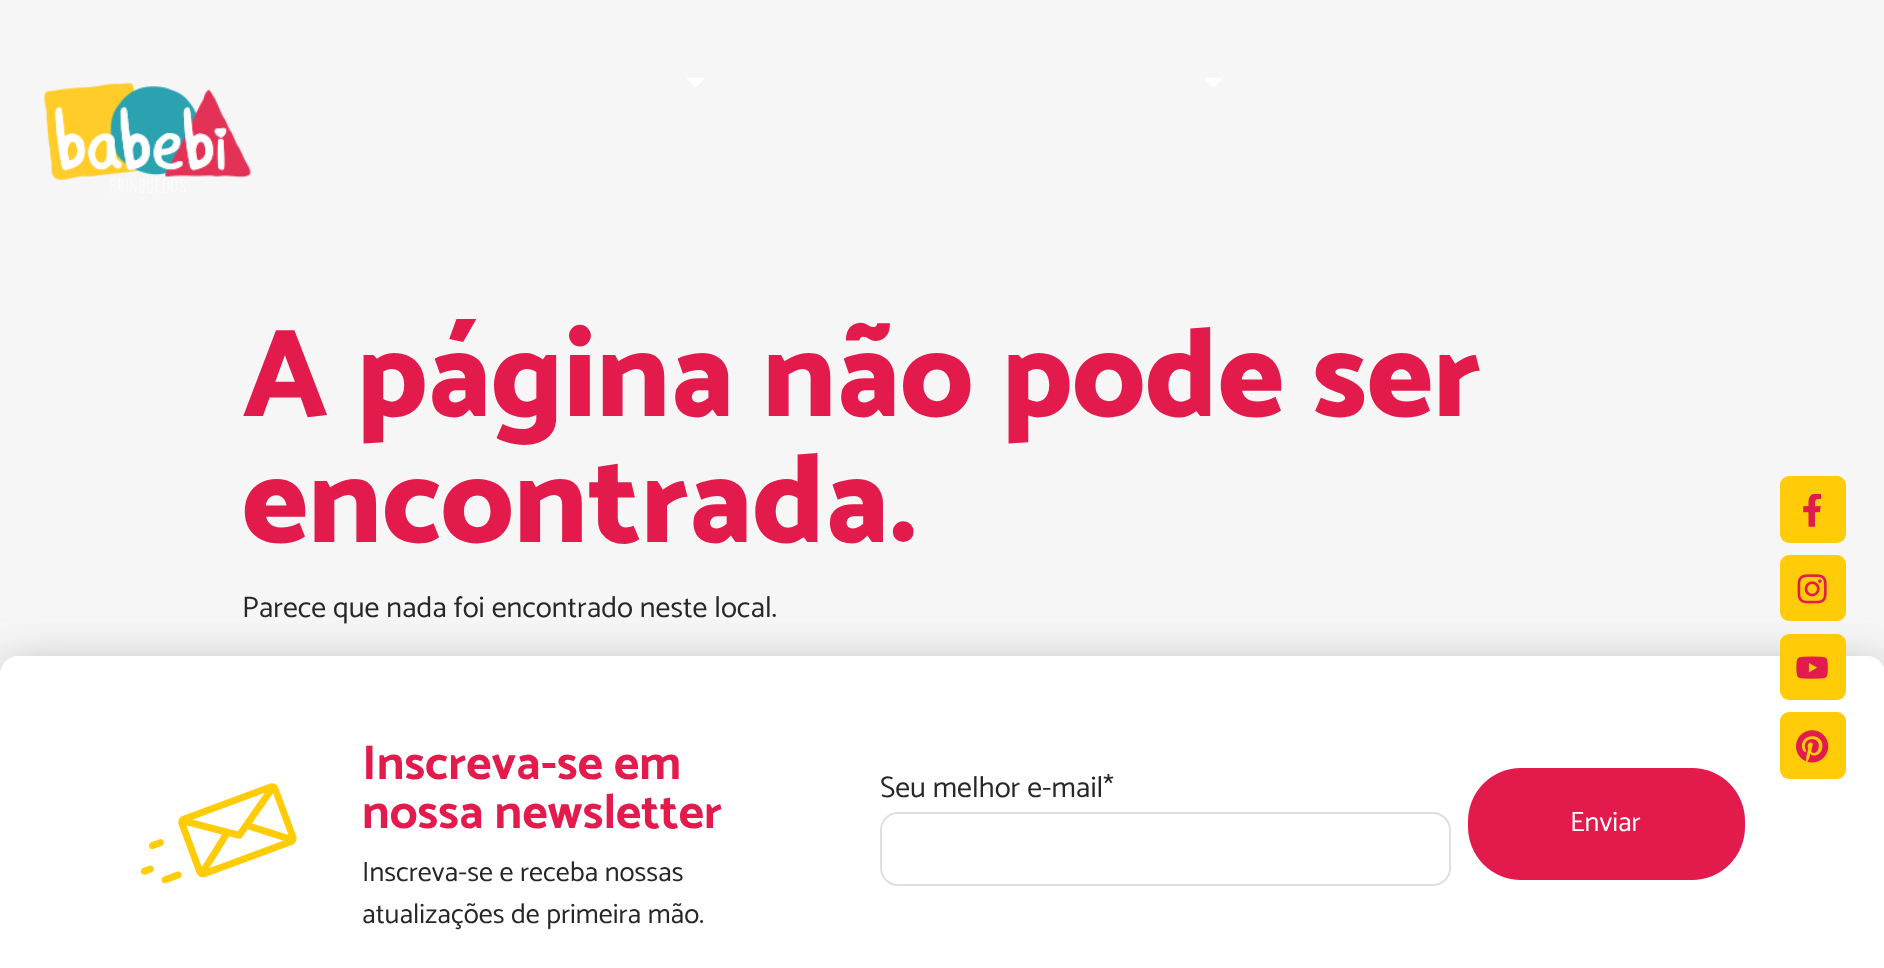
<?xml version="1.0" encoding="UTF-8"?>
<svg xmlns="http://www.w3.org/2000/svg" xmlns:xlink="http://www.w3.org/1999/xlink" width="1884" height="968">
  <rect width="100%" height="100%" fill="#f6f6f6" />
  <image x="44" y="82" width="207" height="112" xlink:href="image1.png" />
  <image x="687" y="78" width="17" height="9" xlink:href="image2.png" />
  <image x="1205" y="78" width="17" height="9" xlink:href="image2.png" />
  <rect x="1780" y="476" width="66" height="67" rx="9" fill="#ffcc07" />
  <image x="1803" y="494" width="19" height="33" xlink:href="image3.png" />
  <rect y="665" width="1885" height="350" rx="18" fill="#7f7e7e" fill-opacity="0.54" filter="blur(22px)" />
  <rect x="1780" y="555" width="66" height="66" rx="9" fill="#ffcc07" />
  <image x="1797" y="574" width="30" height="30" xlink:href="image4.png" />
  <rect y="656" width="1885" height="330" rx="18" fill="#ffffff" />
  <rect x="1780" y="634" width="66" height="66" rx="9" fill="#ffcc07" />
  <image x="1796" y="656" width="32" height="23" xlink:href="image5.png" />
  <rect x="1780" y="712" width="66" height="67" rx="9" fill="#ffcc07" />
  <image x="1796" y="730" width="33" height="33" xlink:href="image6.png" />
  <image x="140" y="783" width="157" height="101" xlink:href="image7.png" />
  <rect x="881" y="813" width="569" height="72" rx="17" fill="none" stroke="#dfdfdf" stroke-width="2" />
  <rect x="1468" y="768" width="277" height="112" rx="53" fill="#e21b4c" />
  <text x="242" y="416" style="font-family: Catamaran; font-size: 126px; font-weight: 800; fill: #e21b4c">A página não pode ser</text>
  <text x="242" y="542" style="font-family: Catamaran; font-size: 126px; font-weight: 800; fill: #e21b4c">encontrada.</text>
  <text x="242" y="617" style="font-family: Catamaran; font-size: 29.75px; fill: #272727">Parece que nada foi encontrado neste local.</text>
  <text x="362" y="779" style="font-family: Catamaran; font-size: 49px; font-weight: bold; fill: #e21b4c">Inscreva-se em</text>
  <text x="362" y="828" style="font-family: Catamaran; font-size: 49px; font-weight: bold; fill: #e21b4c">nossa newsletter</text>
  <text x="362" y="881" style="font-family: Catamaran; font-size: 28px; fill: #272727">Inscreva-se e receba nossas</text>
  <text x="362" y="923" style="font-family: Catamaran; font-size: 28px; fill: #272727">atualizações de primeira mão.</text>
  <text x="880" y="797" style="font-family: Catamaran; font-size: 29.75px; fill: #272727">Seu melhor e-mail*</text>
  <text x="1570" y="831" style="font-family: Catamaran; font-size: 28px; fill: #ffffff">Enviar</text>
</svg>
